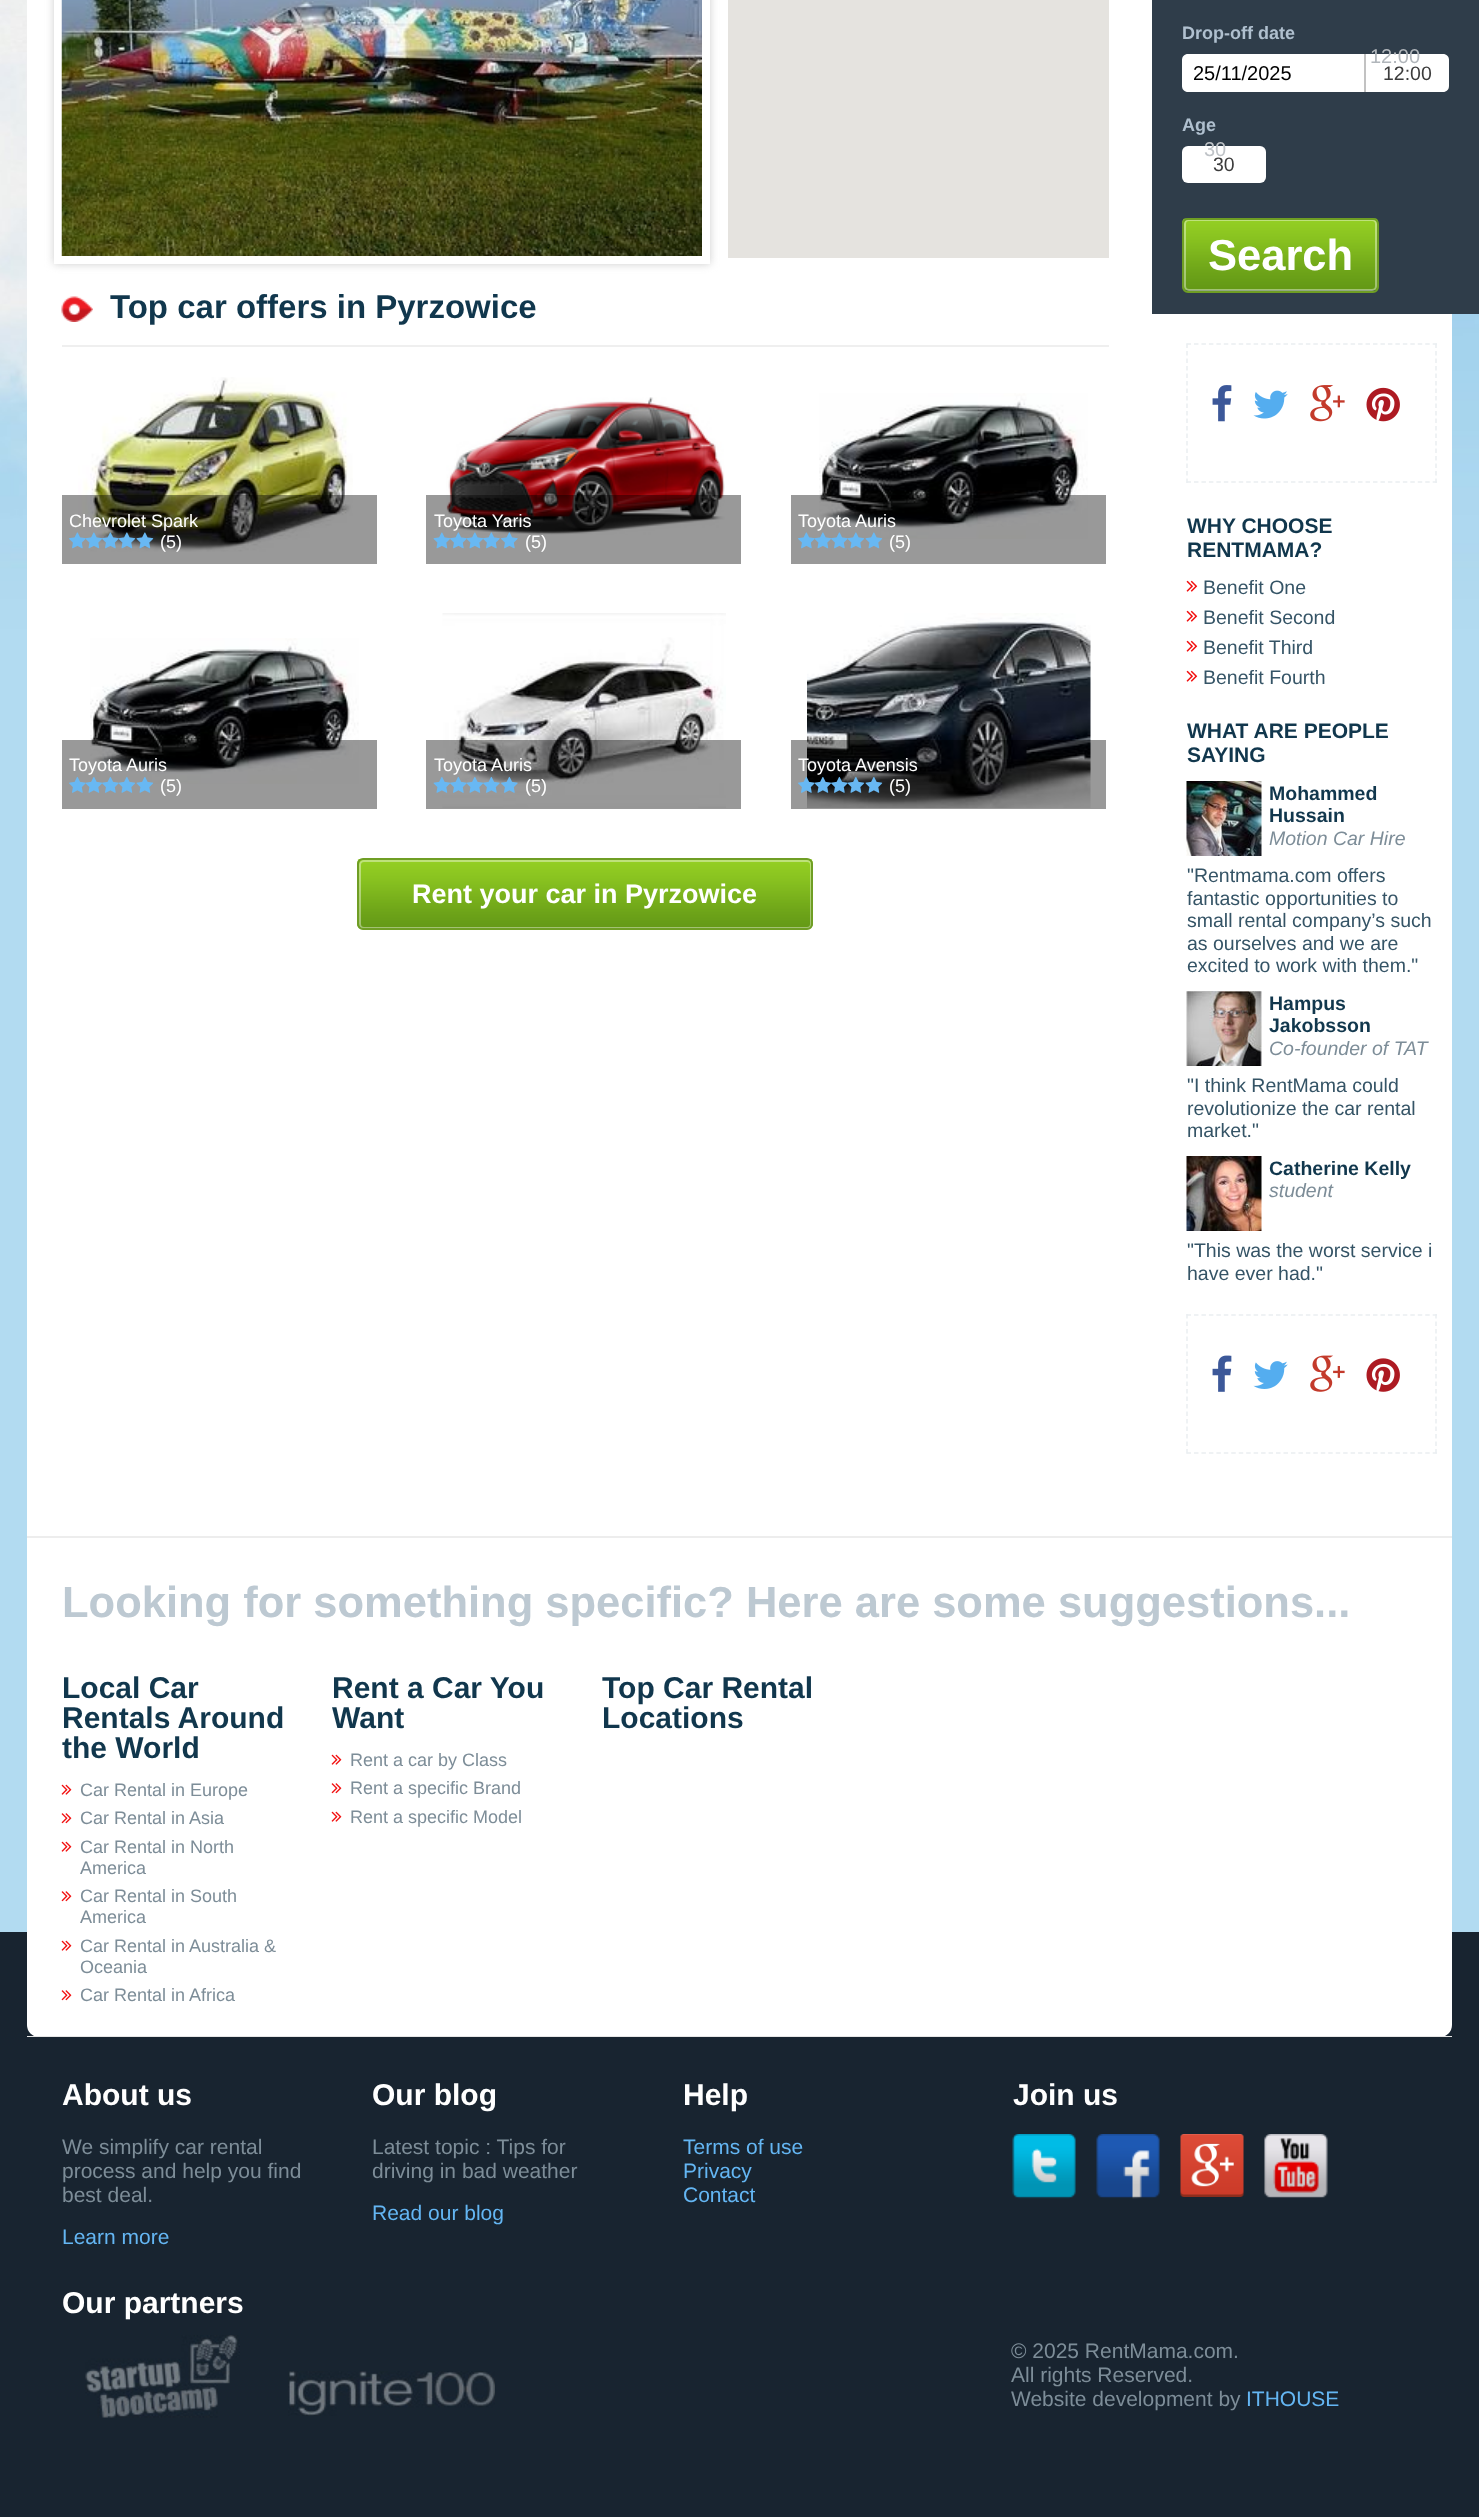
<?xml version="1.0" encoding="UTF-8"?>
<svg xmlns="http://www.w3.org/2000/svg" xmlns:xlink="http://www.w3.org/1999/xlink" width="1479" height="2517">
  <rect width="100%" height="100%" fill="#b2dbf1" />
  <image x="0" y="0" width="1479" height="652" xlink:href="image1.png" />
  <rect y="1932" width="1479" height="585" fill="#182430" />
  <rect x="27" y="-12" width="1425" height="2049" rx="12" fill="#ffffff" />
  <rect x="54" y="-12" width="656" height="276" fill="#cccccc" filter="blur(4px)" />
  <rect x="54" width="656" height="264" fill="#ffffff" />
  <image x="61" y="0" width="641" height="256" xlink:href="image2.png" />
  <rect x="728" width="381" height="258" fill="#e5e3df" />
  <image x="61" y="296" width="32" height="26" xlink:href="image3.png" />
  <rect x="62" y="345" width="1047" height="2" fill="#efefef" />
  <image x="78" y="377" width="275" height="175" xlink:href="image4.png" />
  <rect x="62" y="495" width="315" height="69" fill="#000000" fill-opacity="0.4" />
  <image x="69" y="532" width="17" height="17" xlink:href="image5.png" />
  <image x="85" y="532" width="18" height="17" xlink:href="image6.png" />
  <image x="102" y="532" width="17" height="17" xlink:href="image7.png" />
  <image x="118" y="532" width="18" height="17" xlink:href="image8.png" />
  <image x="136" y="532" width="18" height="17" xlink:href="image9.png" />
  <image x="446" y="397" width="279" height="138" xlink:href="image10.png" />
  <rect x="426" y="495" width="315" height="69" fill="#000000" fill-opacity="0.4" />
  <image x="433" y="532" width="18" height="17" xlink:href="image11.png" />
  <image x="450" y="532" width="17" height="17" xlink:href="image12.png" />
  <image x="466" y="532" width="18" height="17" xlink:href="image13.png" />
  <image x="483" y="532" width="17" height="17" xlink:href="image14.png" />
  <image x="501" y="532" width="17" height="17" xlink:href="image15.png" />
  <image x="819" y="393" width="269" height="146" xlink:href="image16.png" />
  <rect x="791" y="495" width="315" height="69" fill="#000000" fill-opacity="0.4" />
  <image x="798" y="532" width="17" height="17" xlink:href="image17.png" />
  <image x="814" y="532" width="18" height="17" xlink:href="image18.png" />
  <image x="831" y="532" width="17" height="17" xlink:href="image19.png" />
  <image x="847" y="532" width="18" height="17" xlink:href="image20.png" />
  <image x="865" y="532" width="18" height="17" xlink:href="image21.png" />
  <image x="90" y="638" width="269" height="146" xlink:href="image22.png" />
  <rect x="62" y="740" width="315" height="69" fill="#000000" fill-opacity="0.4" />
  <image x="69" y="777" width="17" height="16" xlink:href="image23.png" />
  <image x="85" y="777" width="18" height="16" xlink:href="image24.png" />
  <image x="102" y="777" width="17" height="16" xlink:href="image25.png" />
  <image x="118" y="777" width="18" height="16" xlink:href="image26.png" />
  <image x="136" y="777" width="18" height="16" xlink:href="image27.png" />
  <image x="442" y="613" width="284" height="195" xlink:href="image28.png" />
  <rect x="426" y="740" width="315" height="69" fill="#000000" fill-opacity="0.4" />
  <image x="433" y="777" width="18" height="16" xlink:href="image29.png" />
  <image x="450" y="777" width="17" height="16" xlink:href="image30.png" />
  <image x="466" y="777" width="18" height="16" xlink:href="image31.png" />
  <image x="483" y="777" width="17" height="16" xlink:href="image32.png" />
  <image x="501" y="776" width="17" height="17" xlink:href="image33.png" />
  <image x="807" y="613" width="284" height="195" xlink:href="image34.png" />
  <rect x="791" y="740" width="315" height="69" fill="#000000" fill-opacity="0.4" />
  <image x="798" y="777" width="17" height="16" xlink:href="image35.png" />
  <image x="814" y="776" width="18" height="17" xlink:href="image36.png" />
  <image x="831" y="776" width="17" height="17" xlink:href="image37.png" />
  <image x="847" y="777" width="18" height="16" xlink:href="image38.png" />
  <image x="865" y="777" width="18" height="16" xlink:href="image39.png" />
  <image x="357" y="859" width="456" height="71" xlink:href="image40.png" />
  <rect x="360" y="861" width="451" height="67" rx="4" fill="none" stroke="#ffffff" stroke-opacity="0.4" stroke-width="2" />
  <rect x="358" y="859" width="454" height="70" rx="5" fill="none" stroke="#6f9e24" stroke-width="2" />
  <rect x="1152" width="327" height="314" fill="#2f3d4a" />
  <path d="M 1188 54 h 177 v 38 h -177 c -3.5 0 -6 -2.5 -6 -6 v -26 c 0 -3.5 2.5 -6 6 -6 z" fill="#ffffff" />
  <path d="M 1365 54 h 78 c 3.5 0 6 2.5 6 6 v 26 c 0 3.5 -2.5 6 -6 6 h -78 z" fill="#ffffff" />
  <rect x="1364" y="54" width="2" height="38" fill="#c2c2c2" />
  <rect x="1182" y="146" width="84" height="37" rx="6" fill="#ffffff" />
  <image x="1182" y="218" width="197" height="73" xlink:href="image41.png" />
  <rect x="1185" y="220" width="191" height="70" rx="4" fill="none" stroke="#ffffff" stroke-opacity="0.4" stroke-width="2" />
  <rect x="1183" y="219" width="195" height="73" rx="5" fill="none" stroke="#6f9e24" stroke-width="2" />
  <path d="M 1186.5 344 h 250.5" fill="none" stroke="#eaeef1" stroke-width="1.5" stroke-dasharray="4.5 2.96" />
  <path d="M 1436 343.5 v 139.5" fill="none" stroke="#eaeef1" stroke-width="1.5" stroke-dasharray="4.5 3" />
  <path d="M 1186.5 482 h 250.5" fill="none" stroke="#eaeef1" stroke-width="1.5" stroke-dasharray="4.5 2.96" />
  <path d="M 1187 343.5 v 139.5" fill="none" stroke="#eaeef1" stroke-width="1.5" stroke-dasharray="4.5 3" />
  <image x="1212" y="385" width="20" height="37" xlink:href="image42.png" />
  <image x="1253" y="390" width="35" height="29" xlink:href="image43.png" />
  <image x="1310" y="385" width="35" height="37" xlink:href="image44.png" />
  <image x="1366" y="387" width="34" height="35" xlink:href="image45.png" />
  <image x="1186" y="580" width="12" height="12" xlink:href="image46.png" />
  <image x="1186" y="610" width="12" height="12" xlink:href="image46.png" />
  <image x="1186" y="640" width="12" height="12" xlink:href="image46.png" />
  <image x="1186" y="670" width="12" height="12" xlink:href="image46.png" />
  <image x="1186" y="781" width="76" height="75" xlink:href="image47.png" />
  <image x="1186" y="991" width="76" height="75" xlink:href="image48.png" />
  <image x="1186" y="1156" width="76" height="75" xlink:href="image49.png" />
  <path d="M 1186.5 1315 h 250.5" fill="none" stroke="#eaeef1" stroke-width="1.5" stroke-dasharray="4.5 2.96" />
  <path d="M 1436 1314 v 139.5" fill="none" stroke="#eaeef1" stroke-width="1.5" stroke-dasharray="4.5 3" />
  <path d="M 1186.5 1453 h 250.5" fill="none" stroke="#eaeef1" stroke-width="1.5" stroke-dasharray="4.5 2.96" />
  <path d="M 1187 1314 v 139.5" fill="none" stroke="#eaeef1" stroke-width="1.5" stroke-dasharray="4.5 3" />
  <image x="1212" y="1355" width="20" height="37" xlink:href="image50.png" />
  <image x="1253" y="1361" width="35" height="28" xlink:href="image51.png" />
  <image x="1310" y="1355" width="35" height="37" xlink:href="image52.png" />
  <image x="1366" y="1358" width="34" height="34" xlink:href="image53.png" />
  <rect x="27" y="1536" width="1425" height="2" fill="#ededed" />
  <rect x="27" y="2036" width="1425" height="1" fill="#e6e6e6" />
  <image x="61" y="1784" width="11" height="11" xlink:href="image54.png" />
  <image x="61" y="1813" width="11" height="11" xlink:href="image55.png" />
  <image x="61" y="1841" width="11" height="11" xlink:href="image54.png" />
  <image x="61" y="1891" width="11" height="11" xlink:href="image55.png" />
  <image x="61" y="1940" width="11" height="11" xlink:href="image54.png" />
  <image x="61" y="1990" width="11" height="11" xlink:href="image55.png" />
  <image x="331" y="1754" width="11" height="11" xlink:href="image54.png" />
  <image x="331" y="1783" width="11" height="11" xlink:href="image55.png" />
  <image x="331" y="1811" width="11" height="11" xlink:href="image54.png" />
  <image x="1012" y="2134" width="64" height="65" xlink:href="image56.png" />
  <image x="1096" y="2134" width="64" height="65" xlink:href="image57.png" />
  <image x="1180" y="2134" width="64" height="63" xlink:href="image58.png" />
  <image x="1264" y="2134" width="64" height="64" xlink:href="image59.png" />
  <image x="85" y="2335" width="155" height="83" xlink:href="image60.png" />
  <image x="288" y="2371" width="207" height="45" xlink:href="image61.png" />
  <text x="110" y="318" style="font-family: Liberation Sans; font-size: 33px; font-weight: bold; fill: #11374d">Top car offers in Pyrzowice</text>
  <text x="69" y="527" style="font-family: Liberation Sans; font-size: 18px; fill: #ffffff">Chevrolet Spark</text>
  <text x="160" y="548" style="font-family: Liberation Sans; font-size: 18px; fill: #ffffff">(5)</text>
  <text x="434" y="527" style="font-family: Liberation Sans; font-size: 18px; fill: #ffffff">Toyota Yaris</text>
  <text x="525" y="548" style="font-family: Liberation Sans; font-size: 18px; fill: #ffffff">(5)</text>
  <text x="798" y="527" style="font-family: Liberation Sans; font-size: 18px; fill: #ffffff">Toyota Auris</text>
  <text x="889" y="548" style="font-family: Liberation Sans; font-size: 18px; fill: #ffffff">(5)</text>
  <text x="69" y="771" style="font-family: Liberation Sans; font-size: 18px; fill: #ffffff">Toyota Auris</text>
  <text x="160" y="792" style="font-family: Liberation Sans; font-size: 18px; fill: #ffffff">(5)</text>
  <text x="434" y="771" style="font-family: Liberation Sans; font-size: 18px; fill: #ffffff">Toyota Auris</text>
  <text x="525" y="792" style="font-family: Liberation Sans; font-size: 18px; fill: #ffffff">(5)</text>
  <text x="798" y="771" style="font-family: Liberation Sans; font-size: 18px; fill: #ffffff">Toyota Avensis</text>
  <text x="889" y="792" style="font-family: Liberation Sans; font-size: 18px; fill: #ffffff">(5)</text>
  <text x="412" y="903" style="font-family: Liberation Sans; font-size: 27px; font-weight: bold; fill: #ffffff">Rent your car in Pyrzowice</text>
  <text x="1182" y="39" style="font-family: Liberation Sans; font-size: 18px; font-weight: bold; fill: #b0c0cf">Drop-off date</text>
  <text x="1370" y="63" style="font-family: Liberation Sans; font-size: 20px; fill: #b1b6bb">12:00</text>
  <text x="1193" y="80" style="font-family: Liberation Sans; font-size: 20px; fill: #000000">25/11/2025</text>
  <text x="1383" y="80" style="font-family: Liberation Sans; font-size: 19.5px; fill: #3c3c3c">12:00</text>
  <text x="1182" y="131" style="font-family: Liberation Sans; font-size: 18px; font-weight: bold; fill: #b0c0cf">Age</text>
  <text x="1204" y="156" style="font-family: Liberation Sans; font-size: 20px; fill: #bfc3c7">30</text>
  <text x="1213" y="171" style="font-family: Liberation Sans; font-size: 19.5px; fill: #3c3c3c">30</text>
  <text x="1208" y="270" style="font-family: Liberation Sans; font-size: 43.5px; font-weight: bold; fill: #ffffff">Search</text>
  <text x="1187" y="533" style="font-family: Liberation Sans; font-size: 21px; font-weight: bold; fill: #11374d">WHY CHOOSE</text>
  <text x="1187" y="557" style="font-family: Liberation Sans; font-size: 21px; font-weight: bold; fill: #11374d">RENTMAMA?</text>
  <text x="1203" y="594" style="font-family: Liberation Sans; font-size: 19.5px; fill: #355466">Benefit One</text>
  <text x="1203" y="624" style="font-family: Liberation Sans; font-size: 19.5px; fill: #355466">Benefit Second</text>
  <text x="1203" y="654" style="font-family: Liberation Sans; font-size: 19.5px; fill: #355466">Benefit Third</text>
  <text x="1203" y="684" style="font-family: Liberation Sans; font-size: 19.5px; fill: #355466">Benefit Fourth</text>
  <text x="1187" y="738" style="font-family: Liberation Sans; font-size: 21px; font-weight: bold; fill: #11374d">WHAT ARE PEOPLE</text>
  <text x="1187" y="762" style="font-family: Liberation Sans; font-size: 21px; font-weight: bold; fill: #11374d">SAYING</text>
  <text x="1269" y="800" style="font-family: Liberation Sans; font-size: 19.5px; font-weight: bold; fill: #11374d">Mohammed</text>
  <text x="1269" y="822" style="font-family: Liberation Sans; font-size: 19.5px; font-weight: bold; fill: #11374d">Hussain</text>
  <text x="1269" y="845" style="font-family: Liberation Sans; font-size: 19.5px; font-style: italic; fill: #7d8d98">Motion Car Hire</text>
  <text x="1187" y="882" style="font-family: Liberation Sans; font-size: 19.5px; fill: #355466">"Rentmama.com offers</text>
  <text x="1187" y="905" style="font-family: Liberation Sans; font-size: 19.5px; fill: #355466">fantastic opportunities to</text>
  <text x="1187" y="927" style="font-family: Liberation Sans; font-size: 19.5px; fill: #355466">small rental company’s such</text>
  <text x="1187" y="950" style="font-family: Liberation Sans; font-size: 19.5px; fill: #355466">as ourselves and we are</text>
  <text x="1187" y="972" style="font-family: Liberation Sans; font-size: 19.5px; fill: #355466">excited to work with them."</text>
  <text x="1269" y="1010" style="font-family: Liberation Sans; font-size: 19.5px; font-weight: bold; fill: #11374d">Hampus</text>
  <text x="1269" y="1032" style="font-family: Liberation Sans; font-size: 19.5px; font-weight: bold; fill: #11374d">Jakobsson</text>
  <text x="1269" y="1055" style="font-family: Liberation Sans; font-size: 19.5px; font-style: italic; fill: #7d8d98">Co-founder of TAT</text>
  <text x="1187" y="1092" style="font-family: Liberation Sans; font-size: 19.5px; fill: #355466">"I think RentMama could</text>
  <text x="1187" y="1115" style="font-family: Liberation Sans; font-size: 19.5px; fill: #355466">revolutionize the car rental</text>
  <text x="1187" y="1137" style="font-family: Liberation Sans; font-size: 19.5px; fill: #355466">market."</text>
  <text x="1269" y="1175" style="font-family: Liberation Sans; font-size: 19.5px; font-weight: bold; fill: #11374d">Catherine Kelly</text>
  <text x="1269" y="1197" style="font-family: Liberation Sans; font-size: 19.5px; font-style: italic; fill: #7d8d98">student</text>
  <text x="1187" y="1257" style="font-family: Liberation Sans; font-size: 19.5px; fill: #355466">"This was the worst service i</text>
  <text x="1187" y="1280" style="font-family: Liberation Sans; font-size: 19.5px; fill: #355466">have ever had."</text>
  <text x="62" y="1617" style="font-family: Liberation Sans; font-size: 43.5px; font-weight: bold; fill: #bdc9d2">Looking for something specific? Here are some suggestions...</text>
  <text x="62" y="1698" style="font-family: Liberation Sans; font-size: 30px; font-weight: bold; fill: #11374d">Local Car</text>
  <text x="62" y="1728" style="font-family: Liberation Sans; font-size: 30px; font-weight: bold; fill: #11374d">Rentals Around</text>
  <text x="62" y="1758" style="font-family: Liberation Sans; font-size: 30px; font-weight: bold; fill: #11374d">the World</text>
  <text x="80" y="1796" style="font-family: Liberation Sans; font-size: 18px; fill: #7d8d98">Car Rental in Europe</text>
  <text x="80" y="1824" style="font-family: Liberation Sans; font-size: 18px; fill: #7d8d98">Car Rental in Asia</text>
  <text x="80" y="1853" style="font-family: Liberation Sans; font-size: 18px; fill: #7d8d98">Car Rental in North</text>
  <text x="80" y="1874" style="font-family: Liberation Sans; font-size: 18px; fill: #7d8d98">America</text>
  <text x="80" y="1902" style="font-family: Liberation Sans; font-size: 18px; fill: #7d8d98">Car Rental in South</text>
  <text x="80" y="1923" style="font-family: Liberation Sans; font-size: 18px; fill: #7d8d98">America</text>
  <text x="80" y="1952" style="font-family: Liberation Sans; font-size: 18px; fill: #7d8d98">Car Rental in Australia &amp;</text>
  <text x="80" y="1973" style="font-family: Liberation Sans; font-size: 18px; fill: #7d8d98">Oceania</text>
  <text x="80" y="2001" style="font-family: Liberation Sans; font-size: 18px; fill: #7d8d98">Car Rental in Africa</text>
  <text x="332" y="1698" style="font-family: Liberation Sans; font-size: 30px; font-weight: bold; fill: #11374d">Rent a Car You</text>
  <text x="332" y="1728" style="font-family: Liberation Sans; font-size: 30px; font-weight: bold; fill: #11374d">Want</text>
  <text x="350" y="1766" style="font-family: Liberation Sans; font-size: 18px; fill: #7d8d98">Rent a car by Class</text>
  <text x="350" y="1794" style="font-family: Liberation Sans; font-size: 18px; fill: #7d8d98">Rent a specific Brand</text>
  <text x="350" y="1823" style="font-family: Liberation Sans; font-size: 18px; fill: #7d8d98">Rent a specific Model</text>
  <text x="602" y="1698" style="font-family: Liberation Sans; font-size: 30px; font-weight: bold; fill: #11374d">Top Car Rental</text>
  <text x="602" y="1728" style="font-family: Liberation Sans; font-size: 30px; font-weight: bold; fill: #11374d">Locations</text>
  <text x="62" y="2105" style="font-family: Liberation Sans; font-size: 30px; font-weight: bold; fill: #ffffff">About us</text>
  <text x="62" y="2154" style="font-family: Liberation Sans; font-size: 21px; fill: #7d8d98">We simplify car rental</text>
  <text x="62" y="2178" style="font-family: Liberation Sans; font-size: 21px; fill: #7d8d98">process and help you find</text>
  <text x="62" y="2202" style="font-family: Liberation Sans; font-size: 21px; fill: #7d8d98">best deal.</text>
  <text x="62" y="2244" style="font-family: Liberation Sans; font-size: 21px; fill: #64b6f3">Learn more</text>
  <text x="372" y="2105" style="font-family: Liberation Sans; font-size: 30px; font-weight: bold; fill: #ffffff">Our blog</text>
  <text x="372" y="2154" style="font-family: Liberation Sans; font-size: 21px; fill: #7d8d98">Latest topic : Tips for</text>
  <text x="372" y="2178" style="font-family: Liberation Sans; font-size: 21px; fill: #7d8d98">driving in bad weather</text>
  <text x="372" y="2220" style="font-family: Liberation Sans; font-size: 21px; fill: #64b6f3">Read our blog</text>
  <text x="683" y="2105" style="font-family: Liberation Sans; font-size: 30px; font-weight: bold; fill: #ffffff">Help</text>
  <text x="683" y="2154" style="font-family: Liberation Sans; font-size: 21px; fill: #64b6f3">Terms of use</text>
  <text x="683" y="2178" style="font-family: Liberation Sans; font-size: 21px; fill: #64b6f3">Privacy</text>
  <text x="683" y="2202" style="font-family: Liberation Sans; font-size: 21px; fill: #64b6f3">Contact</text>
  <text x="1013" y="2105" style="font-family: Liberation Sans; font-size: 30px; font-weight: bold; fill: #ffffff">Join us</text>
  <text x="62" y="2313" style="font-family: Liberation Sans; font-size: 30px; font-weight: bold; fill: #ffffff">Our partners</text>
  <text x="1011" y="2358" style="font-family: Liberation Sans; font-size: 21px; fill: #7d8d98">© 2025 RentMama.com.</text>
  <text x="1011" y="2382" style="font-family: Liberation Sans; font-size: 21px; fill: #7d8d98">All rights Reserved.</text>
  <text x="1011" y="2406" style="font-family: Liberation Sans; font-size: 21px; fill: #7d8d98">Website development by</text>
  <text x="1246" y="2406" style="font-family: Liberation Sans; font-size: 21px; fill: #64b6f3">ITHOUSE</text>
</svg>
